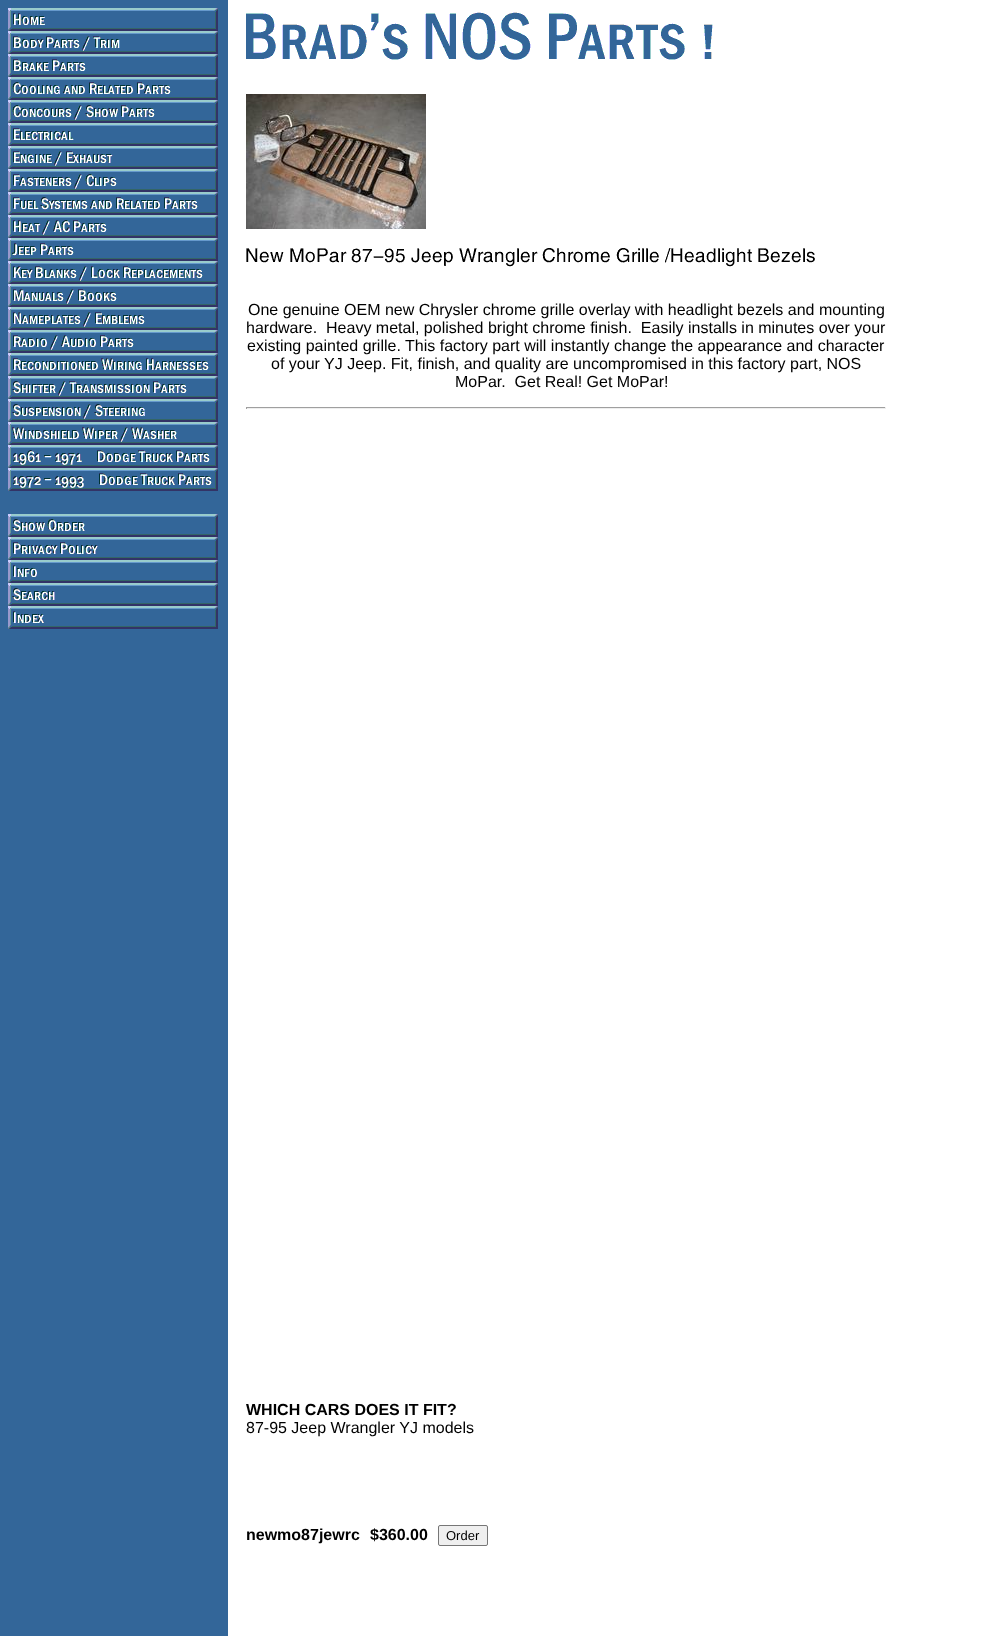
<?xml version="1.0" encoding="UTF-8"?>
<svg xmlns="http://www.w3.org/2000/svg" xmlns:xlink="http://www.w3.org/1999/xlink" width="986" height="1636">
  <rect width="100%" height="100%" fill="#ffffff" />
  <rect width="228" height="1636" fill="#336699" />
  <image x="8" y="8" width="210" height="621" xlink:href="image1.png" />
  <image x="246" y="12" width="467" height="48" xlink:href="image2.png" />
  <image x="246" y="94" width="180" height="135" xlink:href="image3.png" />
  <image x="246" y="248" width="569" height="19" xlink:href="image4.png" />
  <rect x="246" y="407" width="640" height="1" fill="#9f9f9f" />
  <rect x="885" y="407" width="1" height="2" fill="#eeeeee" />
  <rect x="246" y="408" width="640" height="1" fill="#eeeeee" />
  <rect x="246" y="407" width="1" height="2" fill="#9f9f9f" />
  <rect x="438.5" y="1525.5" width="49" height="20" rx="1.5" fill="#efefef" stroke="#767676" />
  <text x="248" y="315" style="font-family: Liberation Sans; font-size: 16px; fill: #000000">One genuine OEM new Chrysler chrome grille overlay with headlight bezels and mounting</text>
  <text x="246" y="333" style="font-family: Liberation Sans; font-size: 16px; fill: #000000" xml:space="preserve">hardware.  Heavy metal, polished bright chrome finish.  Easily installs in minutes over your</text>
  <text x="247" y="351" style="font-family: Liberation Sans; font-size: 16px; fill: #000000">existing painted grille. This factory part will instantly change the appearance and character</text>
  <text x="271" y="369" style="font-family: Liberation Sans; font-size: 16px; fill: #000000">of your YJ Jeep. Fit, finish, and quality are uncompromised in this factory part, NOS</text>
  <text x="455" y="387" style="font-family: Liberation Sans; font-size: 16px; fill: #000000" xml:space="preserve">MoPar.  Get Real! Get MoPar!</text>
  <text x="246" y="1415" style="font-family: Liberation Sans; font-size: 16px; font-weight: bold; fill: #000000">WHICH CARS DOES IT FIT?</text>
  <text x="246" y="1433" style="font-family: Liberation Sans; font-size: 16px; fill: #000000">87-95 Jeep Wrangler YJ models</text>
  <text x="246" y="1540" style="font-family: Liberation Sans; font-size: 16px; font-weight: bold; fill: #000000">newmo87jewrc</text>
  <text x="370" y="1540" style="font-family: Liberation Sans; font-size: 16px; font-weight: bold; fill: #000000">$360.00</text>
  <text x="446" y="1540" style="font-family: Liberation Sans; font-size: 13px; fill: #000000">Order</text>
</svg>
